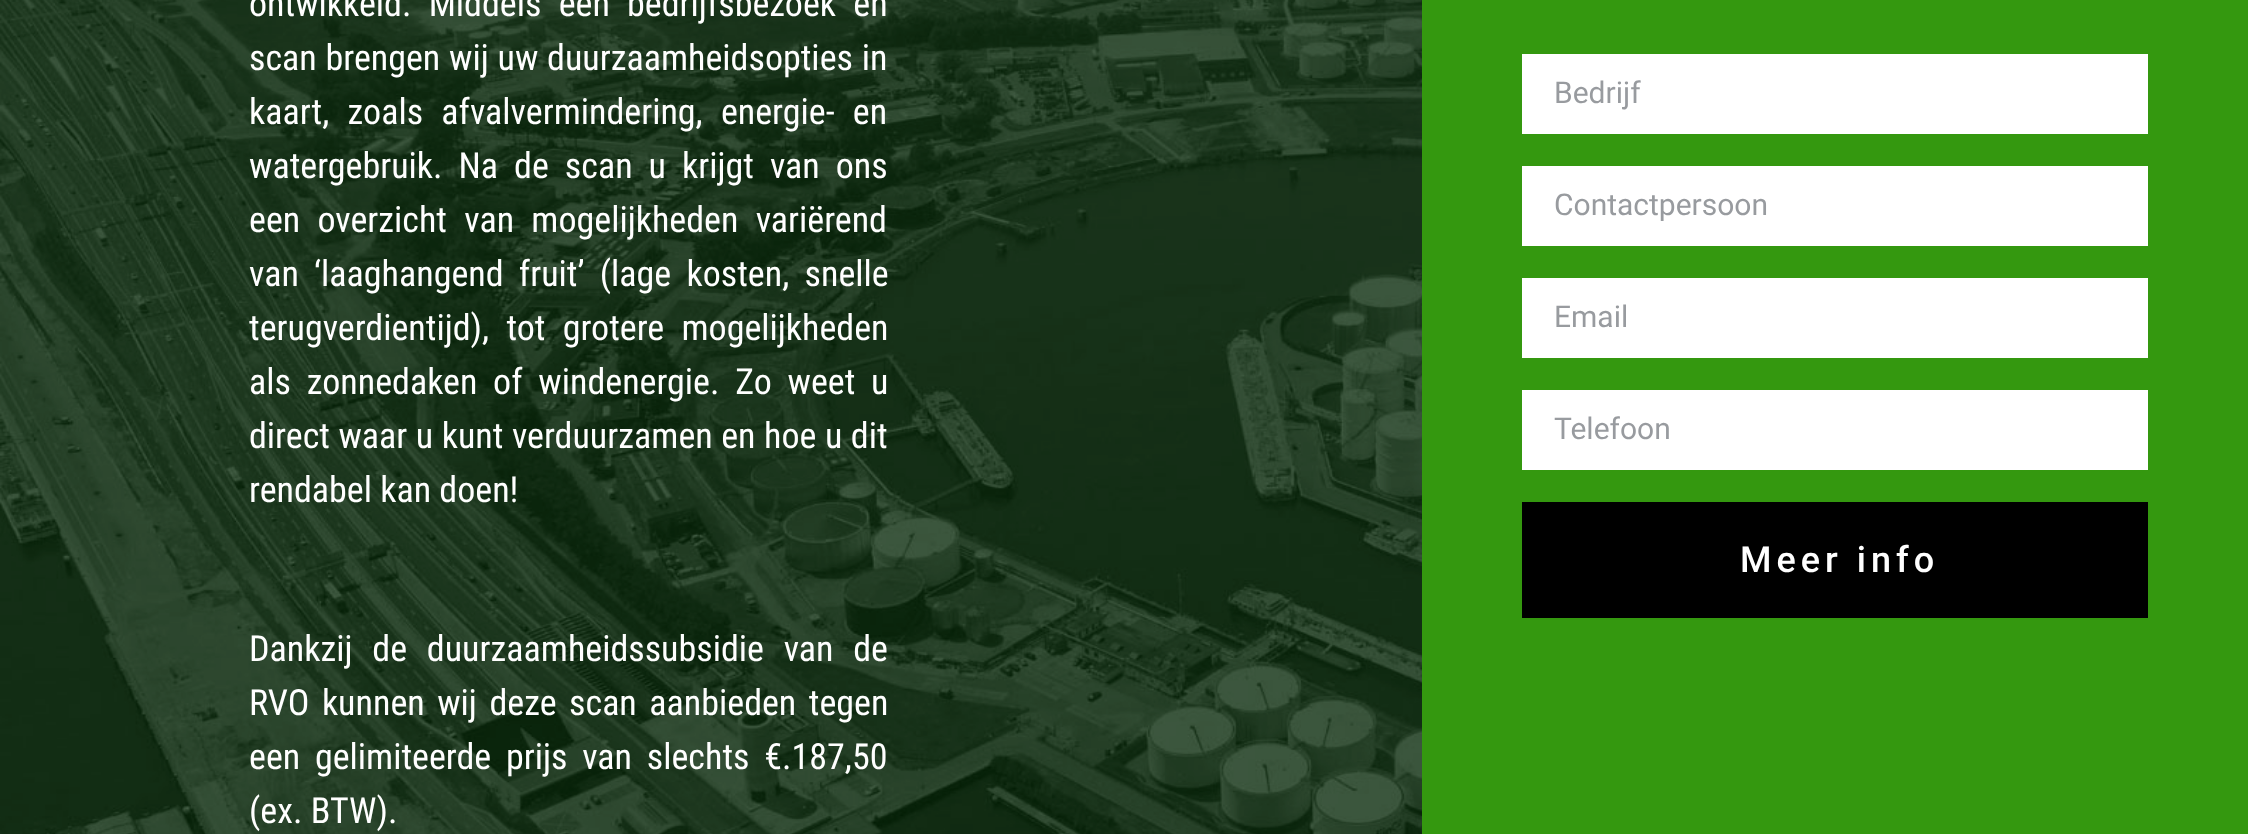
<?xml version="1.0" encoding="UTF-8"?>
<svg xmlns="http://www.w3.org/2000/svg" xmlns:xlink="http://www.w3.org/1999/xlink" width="2248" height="834">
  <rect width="100%" height="100%" fill="#ffffff" />
  <image x="0" y="0" width="1422" height="834" xlink:href="image1.png" />
  <rect x="1422" width="826" height="834" fill="#34980f" />
  <rect x="1522" y="54" width="626" height="80" fill="#ffffff" />
  <rect x="1522" y="166" width="626" height="80" fill="#ffffff" />
  <rect x="1522" y="278" width="626" height="80" fill="#ffffff" />
  <rect x="1522" y="390" width="626" height="80" fill="#ffffff" />
  <rect x="1522" y="502" width="626" height="116" fill="#000000" />
  <text x="249" y="16" word-spacing="9" style="font-family: Roboto Condensed; font-size: 36px; fill: #ffffff">ontwikkeld. Middels een bedrijfsbezoek en</text>
  <text x="249" y="70" word-spacing="0.5" style="font-family: Roboto Condensed; font-size: 36px; fill: #ffffff">scan brengen wij uw duurzaamheidsopties in</text>
  <text x="249" y="124" word-spacing="10" style="font-family: Roboto Condensed; font-size: 36px; fill: #ffffff">kaart, zoals afvalvermindering, energie- en</text>
  <text x="249" y="178" word-spacing="7.75" style="font-family: Roboto Condensed; font-size: 36px; fill: #ffffff">watergebruik. Na de scan u krijgt van ons</text>
  <text x="249" y="232" word-spacing="9" style="font-family: Roboto Condensed; font-size: 36px; fill: #ffffff">een overzicht van mogelijkheden variërend</text>
  <text x="249" y="286" word-spacing="7" style="font-family: Roboto Condensed; font-size: 36px; fill: #ffffff">van ‘laaghangend fruit’ (lage kosten, snelle</text>
  <text x="249" y="340" word-spacing="9" style="font-family: Roboto Condensed; font-size: 36px; fill: #ffffff">terugverdientijd), tot grotere mogelijkheden</text>
  <text x="249" y="394" word-spacing="7.5" style="font-family: Roboto Condensed; font-size: 36px; fill: #ffffff">als zonnedaken of windenergie. Zo weet u</text>
  <text x="249" y="448" word-spacing="0.25" style="font-family: Roboto Condensed; font-size: 36px; fill: #ffffff">direct waar u kunt verduurzamen en hoe u dit</text>
  <text x="249" y="502" style="font-family: Roboto Condensed; font-size: 36px; fill: #ffffff">rendabel kan doen!</text>
  <text x="249" y="661" word-spacing="11.5" style="font-family: Roboto Condensed; font-size: 36px; fill: #ffffff">Dankzij de duurzaamheidssubsidie van de</text>
  <text x="249" y="715" word-spacing="4.25" style="font-family: Roboto Condensed; font-size: 36px; fill: #ffffff">RVO kunnen wij deze scan aanbieden tegen</text>
  <text x="249" y="769" word-spacing="6.5" style="font-family: Roboto Condensed; font-size: 36px; fill: #ffffff">een gelimiteerde prijs van slechts €.187,50</text>
  <text x="249" y="823" style="font-family: Roboto Condensed; font-size: 36px; fill: #ffffff">(ex. BTW).</text>
  <text x="1554" y="103" style="font-family: Roboto; font-size: 30px; fill: #989b9f">Bedrijf</text>
  <text x="1554" y="215" style="font-family: Roboto; font-size: 30px; fill: #989b9f">Contactpersoon</text>
  <text x="1554" y="327" style="font-family: Roboto; font-size: 30px; fill: #989b9f">Email</text>
  <text x="1554" y="439" style="font-family: Roboto; font-size: 30px; fill: #989b9f">Telefoon</text>
  <text x="1740" y="572" style="font-family: Roboto; font-size: 36px; font-weight: 500; letter-spacing: 5px; fill: #ffffff">Meer info</text>
</svg>
